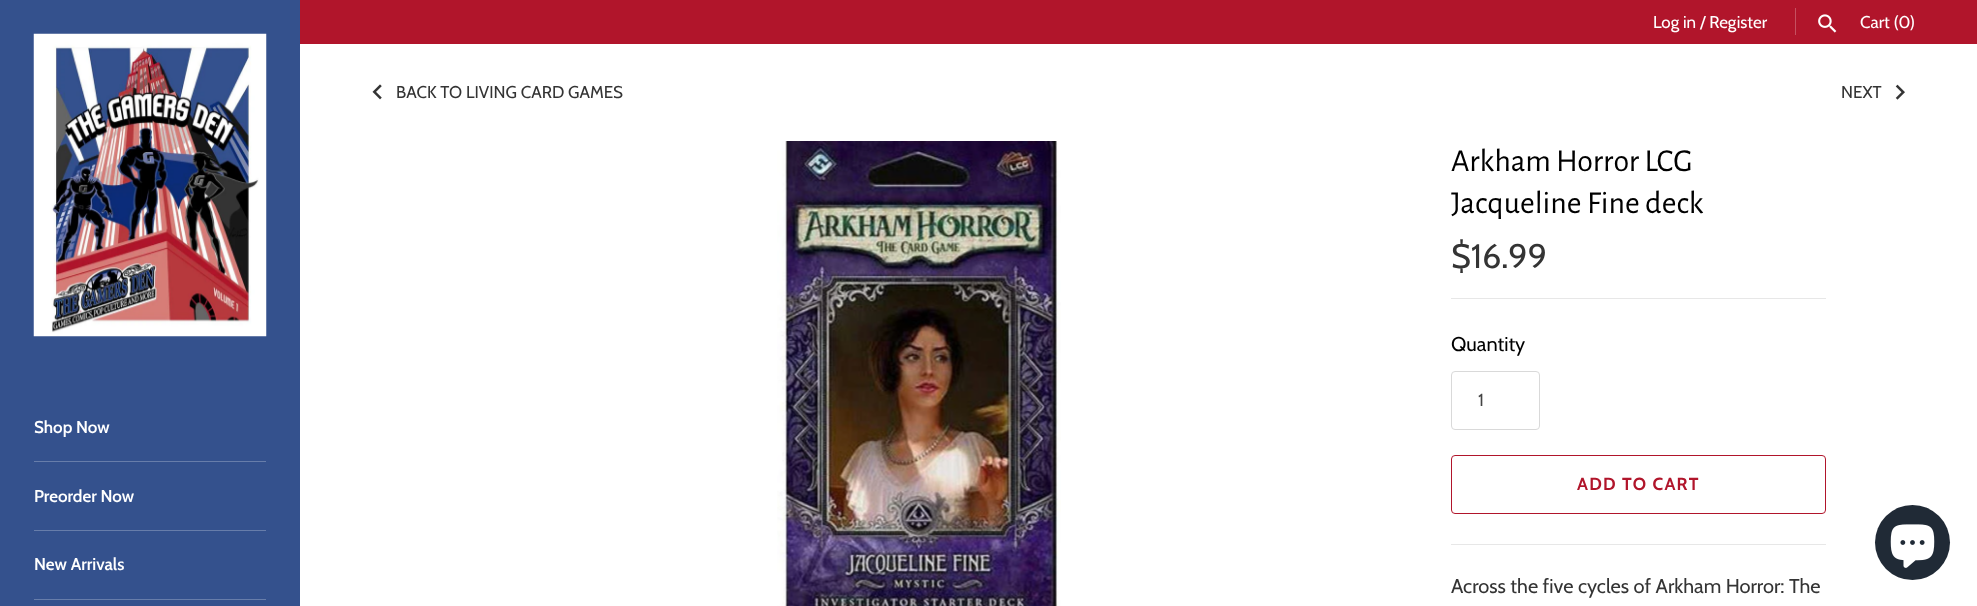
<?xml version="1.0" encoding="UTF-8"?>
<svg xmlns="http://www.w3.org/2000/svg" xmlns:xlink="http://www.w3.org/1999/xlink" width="1977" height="606">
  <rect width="100%" height="100%" fill="#ffffff" />
  <rect x="300" width="1677" height="44" fill="#b1152b" />
  <rect x="1795" y="8" width="1" height="27" fill="#c55060" />
  <image x="1818" y="14" width="19" height="19" xlink:href="image1.png" />
  <rect width="300" height="606" fill="#34518d" />
  <image x="33" y="33" width="234" height="304" xlink:href="image2.png" />
  <rect x="34" y="461" width="232" height="1" fill="#677daa" />
  <rect x="34" y="530" width="232" height="1" fill="#677daa" />
  <rect x="34" y="599" width="232" height="1" fill="#677daa" />
  <image x="372" y="84" width="10" height="16" xlink:href="image3.png" />
  <image x="1895" y="84" width="10" height="16" xlink:href="image4.png" />
  <image x="777" y="141" width="284" height="465" xlink:href="image5.png" />
  <rect x="1451" y="298" width="375" height="1" fill="#e7e7e7" />
  <rect x="1451.5" y="371.5" width="88" height="58" rx="3.5" fill="none" stroke="#d9d9d9" />
  <rect x="1451.5" y="455.5" width="374" height="58" rx="3.5" fill="none" stroke="#b1152b" />
  <rect x="1451" y="544" width="375" height="1" fill="#e7e7e7" />
  <circle cx="1912.5" cy="542.5" r="37.5" fill="#202a36" />
  <image x="1890" y="524" width="45" height="44" xlink:href="image6.png" />
  <text x="1653" y="28" style="font-family: Cabin; font-size: 17px; fill: #ffffff">Log in / Register</text>
  <text x="1860" y="28" style="font-family: Cabin; font-size: 17px; fill: #ffffff">Cart (0)</text>
  <text x="34" y="433" style="font-family: Cabin; font-size: 17px; font-weight: 600; fill: #ffffff">Shop Now</text>
  <text x="34" y="502" style="font-family: Cabin; font-size: 17px; font-weight: 600; fill: #ffffff">Preorder Now</text>
  <text x="34" y="570" style="font-family: Cabin; font-size: 17px; font-weight: 600; fill: #ffffff">New Arrivals</text>
  <text x="396" y="98" style="font-family: Cabin; font-size: 17px; fill: #343434">BACK TO LIVING CARD GAMES</text>
  <text x="1841" y="98" style="font-family: Cabin; font-size: 17px; fill: #343434">NEXT</text>
  <text x="1451" y="171" style="font-family: Alegreya Sans; font-size: 32px; fill: #000000">Arkham Horror LCG</text>
  <text x="1451" y="213" style="font-family: Alegreya Sans; font-size: 32px; fill: #000000">Jacqueline Fine deck</text>
  <text x="1451" y="268" style="font-family: Cabin; font-size: 34px; fill: #343434">$16.99</text>
  <text x="1451" y="351" style="font-family: Cabin; font-size: 20px; fill: #000000">Quantity</text>
  <text x="1478" y="406" style="font-family: Cabin; font-size: 17.5px; fill: #444444">1</text>
  <text x="1577" y="490" style="font-family: Cabin; font-size: 17.5px; font-weight: bold; letter-spacing: 1.25px; fill: #b1152b">ADD TO CART</text>
  <text x="1451" y="593" style="font-family: Cabin; font-size: 20px; fill: #343434">Across the five cycles of Arkham Horror: The</text>
</svg>
